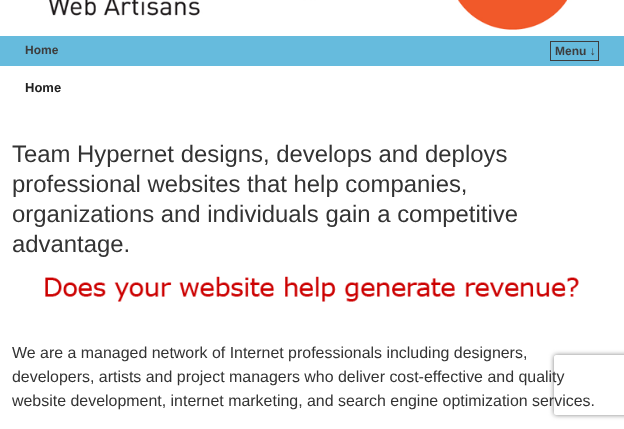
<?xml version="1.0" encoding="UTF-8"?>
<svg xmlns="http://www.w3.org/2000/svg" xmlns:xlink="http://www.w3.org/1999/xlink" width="624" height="429">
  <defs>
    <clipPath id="clip1"><path d="M 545 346 h 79 v 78 h -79 z m 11 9 h 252 c 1 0 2 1 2 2 v 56 c 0 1 -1 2 -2 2 h -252 c -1 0 -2 -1 -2 -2 v -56 c 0 -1 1 -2 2 -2 z" clip-rule="evenodd" /></clipPath>
  </defs>
  <rect width="100%" height="100%" fill="#ffffff" />
  <image x="0" y="0" width="624" height="36" xlink:href="image1.png" />
  <rect y="36" width="624" height="30" fill="#66bbdd" />
  <rect x="550.5" y="41.5" width="48" height="19" fill="none" stroke="#3d3d3d" />
  <image x="45" y="276" width="534" height="26" xlink:href="image2.png" />
  <g clip-path="url(#clip1)">
    <rect x="554" y="355" width="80" height="60" rx="2" fill="#808080" filter="blur(2.5px)" />
  </g>
  <text x="25" y="54" style="font-family: Liberation Sans; font-size: 12px; font-weight: bold; fill: #3d3d3d">Home</text>
  <text x="555" y="55" style="font-family: Liberation Sans; font-size: 12px; font-weight: bold; fill: #3d3d3d">Menu ↓</text>
  <text x="25" y="92" style="font-family: Liberation Sans; font-size: 13px; font-weight: bold; fill: #222222">Home</text>
  <text x="12" y="162" style="font-family: Liberation Sans; font-size: 23.9px; fill: #333333">Team Hypernet designs, develops and deploys</text>
  <text x="12" y="192" style="font-family: Liberation Sans; font-size: 23.9px; fill: #333333">professional websites that help companies,</text>
  <text x="12" y="222" style="font-family: Liberation Sans; font-size: 23.9px; fill: #333333">organizations and individuals gain a competitive</text>
  <text x="12" y="252" style="font-family: Liberation Sans; font-size: 23.9px; fill: #333333">advantage.</text>
  <text x="12" y="358" style="font-family: Liberation Sans; font-size: 15.95px; fill: #333333">We are a managed network of Internet professionals including designers,</text>
  <text x="12" y="382" style="font-family: Liberation Sans; font-size: 15.95px; fill: #333333">developers, artists and project managers who deliver cost-effective and quality</text>
  <text x="12" y="406" style="font-family: Liberation Sans; font-size: 15.95px; fill: #333333">website development, internet marketing, and search engine optimization services.</text>
</svg>
